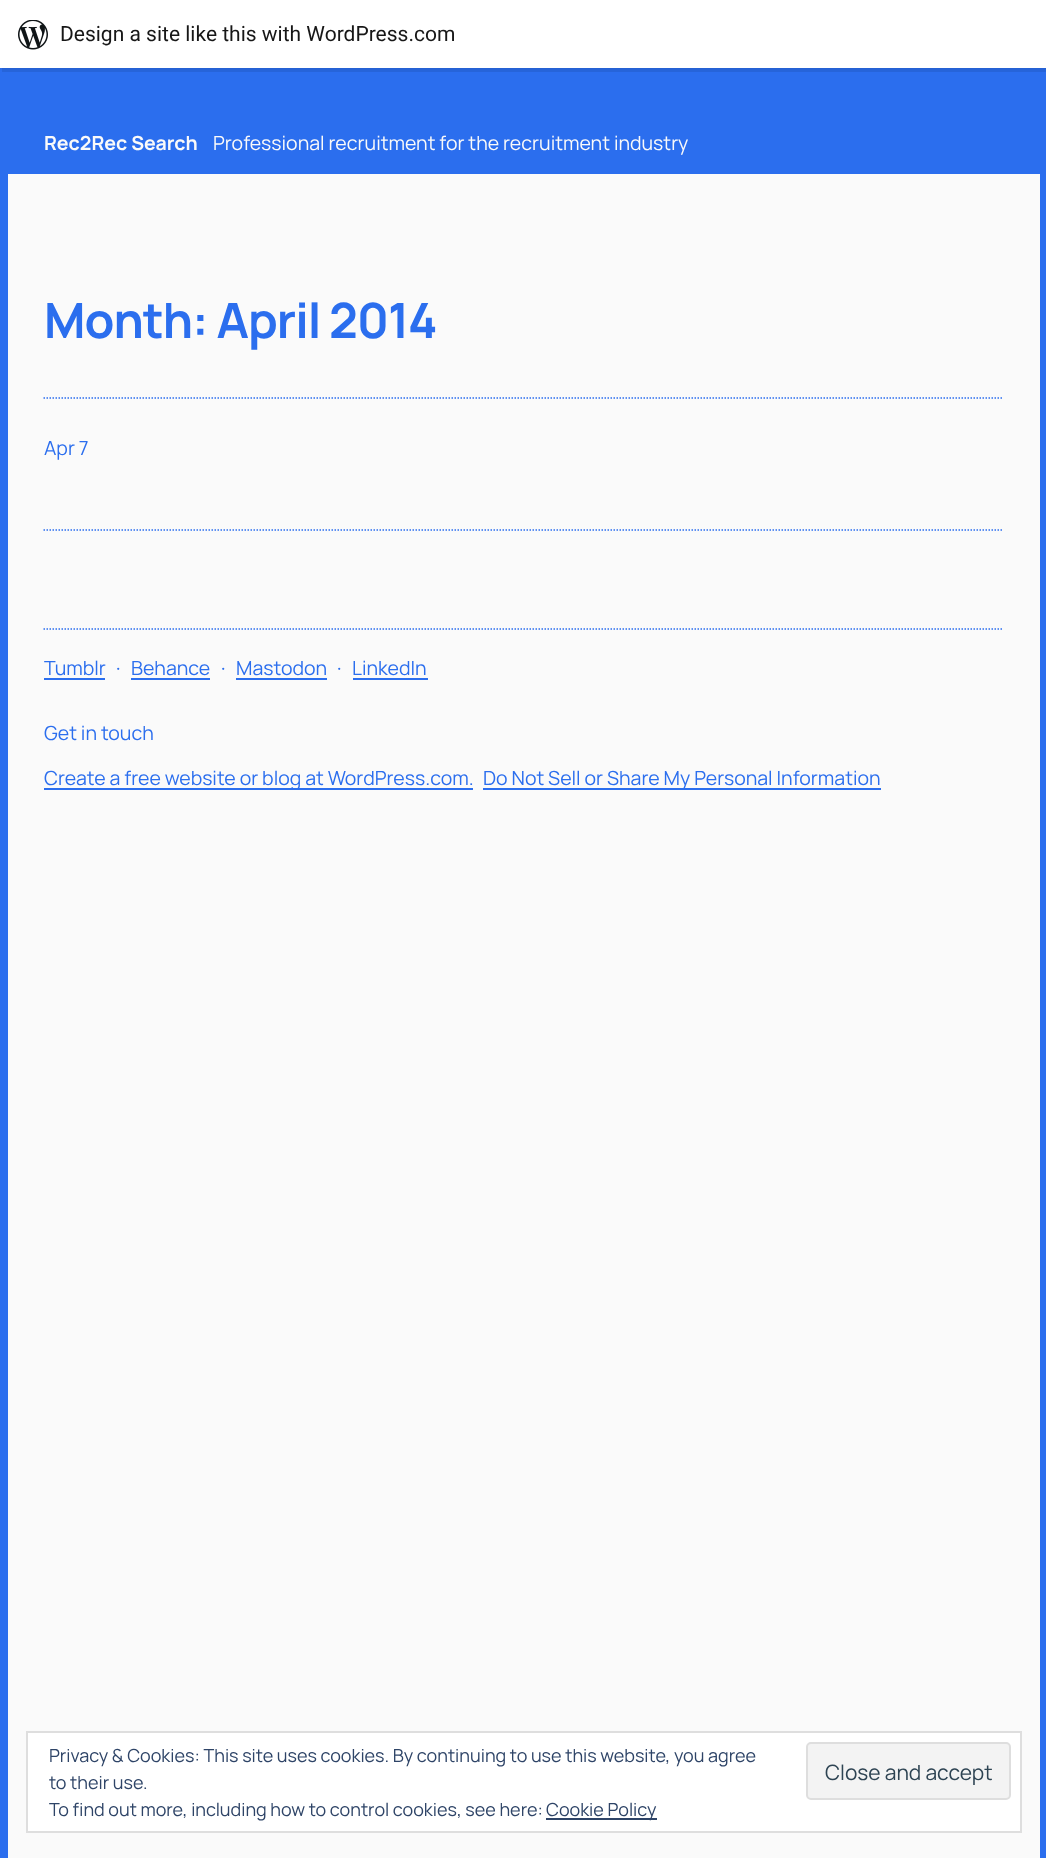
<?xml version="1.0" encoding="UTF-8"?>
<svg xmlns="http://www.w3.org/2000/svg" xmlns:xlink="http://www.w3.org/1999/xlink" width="1046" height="1858">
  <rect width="100%" height="100%" fill="#fafafa" />
  <rect x="1040" y="68" width="6" height="1790" fill="#2b6eee" />
  <rect y="68" width="8" height="1790" fill="#2b6eee" />
  <rect x="8" y="68" width="1032" height="106" fill="#2b6eee" />
  <rect y="2" width="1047" height="67" fill="#000000" fill-opacity="0.05" filter="blur(1.5px)" />
  <path d="M 2 68 v 4 h 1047 v -67 h -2 v 63 z" fill="#000000" fill-opacity="0.08" />
  <rect width="1046" height="68" fill="#ffffff" />
  <image x="18" y="20" width="30" height="30" xlink:href="image1.png" />
  <path d="M 43.5 398 h 960" fill="none" stroke="#2b6eee" stroke-width="1.5" stroke-dasharray="1.5 1.5" />
  <path d="M 43.5 530 h 960" fill="none" stroke="#2b6eee" stroke-width="1.5" stroke-dasharray="1.5 1.5" />
  <path d="M 43.5 629 h 960" fill="none" stroke="#2b6eee" stroke-width="1.5" stroke-dasharray="1.5 1.5" />
  <rect x="44" y="678" width="61" height="2" fill="#2b6eee" />
  <rect x="131" y="678" width="79" height="2" fill="#2b6eee" />
  <rect x="236" y="678" width="91" height="2" fill="#2b6eee" />
  <rect x="353" y="678" width="75" height="2" fill="#2b6eee" />
  <rect x="44" y="788" width="429" height="2" fill="#2b6eee" />
  <rect x="483" y="788" width="398" height="2" fill="#2b6eee" />
  <rect x="27" y="1732" width="994" height="100" fill="#ffffff" stroke="#dedede" stroke-width="2" />
  <rect x="807" y="1743" width="203" height="56" rx="4" fill="#f3f3f3" stroke="#dedede" stroke-width="2" />
  <rect x="546" y="1818" width="111" height="2" fill="#2e4467" />
  <text x="60" y="41" style="font-family: Roboto; font-size: 21px; fill: #171717">Design a site like this with WordPress.com</text>
  <text x="44" y="150" style="font-family: Manrope; font-size: 19.5px; font-weight: bold; fill: #fafafa">Rec2Rec Search</text>
  <text x="213" y="150" style="font-family: Manrope; font-size: 19.5px; fill: #fafafa">Professional recruitment for the recruitment industry</text>
  <text x="44" y="338" style="font-family: Manrope; font-size: 48.5px; font-weight: bold; letter-spacing: -1px; fill: #2b6eee">Month: April 2014</text>
  <text x="44" y="455" style="font-family: Manrope; font-size: 19.5px; fill: #2b6eee">Apr 7</text>
  <text x="44" y="675" style="font-family: Manrope; font-size: 19.5px; fill: #2b6eee">Tumblr</text>
  <text x="116" y="675" style="font-family: Manrope; font-size: 19.5px; fill: #2b6eee">·</text>
  <text x="131" y="675" style="font-family: Manrope; font-size: 19.5px; fill: #2b6eee">Behance</text>
  <text x="221" y="675" style="font-family: Manrope; font-size: 19.5px; fill: #2b6eee">·</text>
  <text x="236" y="675" style="font-family: Manrope; font-size: 19.5px; fill: #2b6eee">Mastodon</text>
  <text x="337" y="675" style="font-family: Manrope; font-size: 19.5px; fill: #2b6eee">·</text>
  <text x="352" y="675" style="font-family: Manrope; font-size: 19.5px; fill: #2b6eee">LinkedIn</text>
  <text x="44" y="740" style="font-family: Manrope; font-size: 19.5px; fill: #2b6eee">Get in touch</text>
  <text x="44" y="785" style="font-family: Manrope; font-size: 19.5px; fill: #2b6eee">Create a free website or blog at WordPress.com.</text>
  <text x="483" y="785" style="font-family: Manrope; font-size: 19.5px; fill: #2b6eee">Do Not Sell or Share My Personal Information</text>
  <text x="49" y="1762" style="font-family: Manrope; font-size: 18px; fill: #2e4467">Privacy &amp; Cookies: This site uses cookies. By continuing to use this website, you agree</text>
  <text x="49" y="1789" style="font-family: Manrope; font-size: 18px; fill: #2e4467">to their use.</text>
  <text x="825" y="1780" style="font-family: Manrope; font-size: 21px; fill: #2e4453">Close and accept</text>
  <text x="49" y="1816" style="font-family: Manrope; font-size: 18px; fill: #2e4467">To find out more, including how to control cookies, see here:</text>
  <text x="546" y="1816" style="font-family: Manrope; font-size: 18px; fill: #2e4467">Cookie Policy</text>
</svg>
